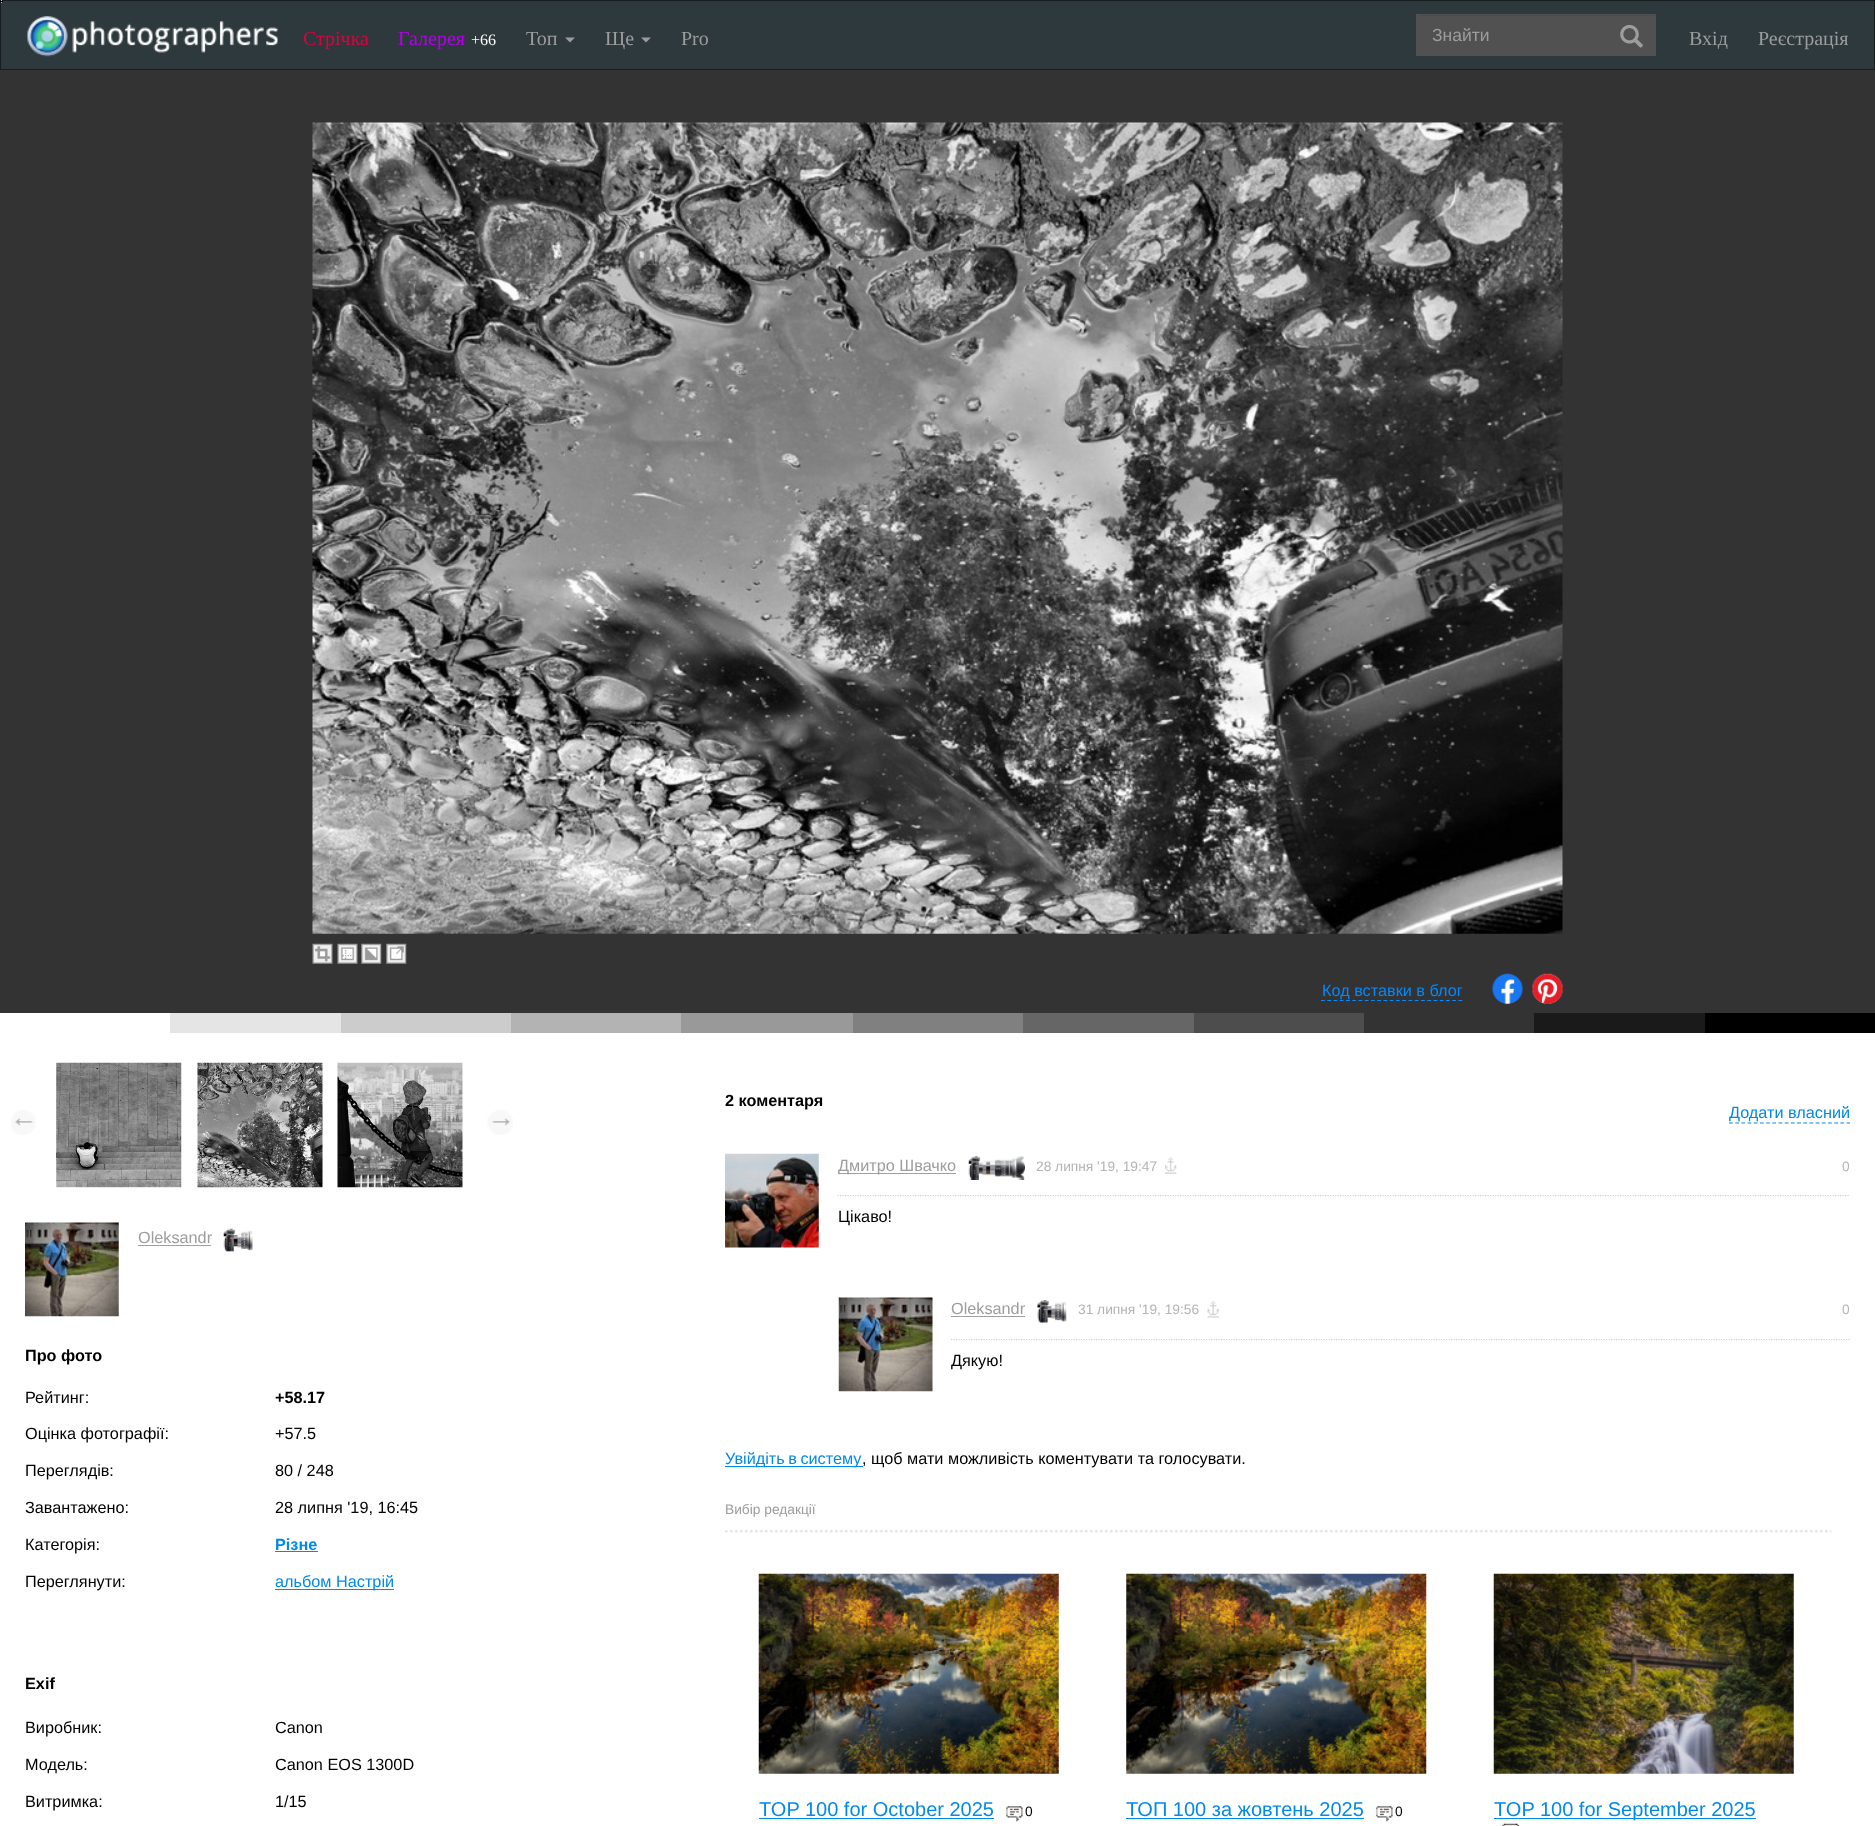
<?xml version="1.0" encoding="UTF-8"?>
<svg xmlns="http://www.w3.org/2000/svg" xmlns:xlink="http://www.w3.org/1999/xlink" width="1875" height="1826">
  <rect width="100%" height="100%" fill="#ffffff" />
  <rect x="0.5" y="0.5" width="1874" height="69" fill="#2e393d" stroke="#181e20" />
  <image x="26" y="16" width="252" height="41" xlink:href="image1.png" />
  <path d="M 565 37.5 h 10 l -5 5 z" fill="#9d9d9d" />
  <path d="M 641 37.5 h 10 l -5 5 z" fill="#9d9d9d" />
  <rect x="1416" y="14" width="240" height="42" fill="#515151" />
  <rect x="1418" y="15" width="237" height="1" fill="#4b4b4b" />
  <image x="1620" y="24" width="23" height="24" xlink:href="image2.png" />
  <rect x="1" width="1" height="3" fill="#c4c4c4" />
  <rect y="1" width="3" height="1" fill="#000000" />
  <rect y="70" width="1875" height="963" fill="#333333" />
  <image x="312" y="122" width="1251" height="812" xlink:href="image3.png" />
  <image x="312" y="943" width="21" height="21" xlink:href="image4.png" />
  <image x="337" y="943" width="21" height="21" xlink:href="image5.png" />
  <image x="361" y="943" width="21" height="21" xlink:href="image6.png" />
  <image x="386" y="943" width="21" height="21" xlink:href="image7.png" />
  <path d="M 1321 1000.5 h 141.5" fill="none" stroke="#008aff" stroke-width="1.2" stroke-dasharray="3.75 2.5" />
  <image x="1492" y="973" width="31" height="31" xlink:href="image8.png" />
  <image x="1532" y="973" width="31" height="31" xlink:href="image9.png" />
  <rect y="1013" width="170" height="20" fill="#ffffff" />
  <rect x="170" y="1013" width="171" height="20" fill="#e5e5e5" />
  <rect x="341" y="1013" width="170" height="20" fill="#cccccc" />
  <rect x="511" y="1013" width="170" height="20" fill="#b3b3b3" />
  <rect x="681" y="1013" width="172" height="20" fill="#999999" />
  <rect x="853" y="1013" width="170" height="20" fill="#808080" />
  <rect x="1023" y="1013" width="171" height="20" fill="#666666" />
  <rect x="1194" y="1013" width="170" height="20" fill="#4d4d4d" />
  <rect x="1534" y="1013" width="171" height="20" fill="#1a1a1a" />
  <rect x="1705" y="1013" width="170" height="20" fill="#000000" />
  <image x="56" y="1062" width="126" height="126" xlink:href="image10.png" />
  <image x="197" y="1062" width="126" height="126" xlink:href="image11.png" />
  <image x="337" y="1062" width="126" height="126" xlink:href="image12.png" />
  <image x="11" y="1110" width="25" height="25" xlink:href="image13.png" />
  <image x="487" y="1110" width="26" height="25" xlink:href="image14.png" />
  <image x="25" y="1222" width="94" height="95" xlink:href="image15.png" />
  <rect x="138" y="1245" width="73" height="1" fill="#a0a0a0" />
  <image x="223" y="1228" width="30" height="24" xlink:href="image16.png" />
  <rect x="275" y="1551" width="43" height="1" fill="#008aeb" />
  <rect x="275" y="1589" width="119" height="1" fill="#008aeb" />
  <path d="M 1729 1123 h 121" fill="none" stroke="#008aeb" stroke-width="1.2" stroke-dasharray="3.75 2.44" />
  <image x="725" y="1153" width="94" height="95" xlink:href="image17.png" />
  <path d="M 837.5 1195.5 h 1012.5" fill="none" stroke="#cccccc" stroke-width="1.2" stroke-dasharray="1.25 1.25" />
  <rect x="838" y="1173" width="118" height="1" fill="#a0a0a0" />
  <image x="968" y="1156" width="57" height="24" xlink:href="image18.png" />
  <image x="1165" y="1157" width="12" height="17" xlink:href="image19.png" />
  <image x="838" y="1297" width="95" height="95" xlink:href="image20.png" />
  <path d="M 951 1339.5 h 899" fill="none" stroke="#cccccc" stroke-width="1.2" stroke-dasharray="1.25 1.25" />
  <rect x="951" y="1316" width="74" height="1" fill="#a0a0a0" />
  <image x="1037" y="1300" width="30" height="23" xlink:href="image21.png" />
  <image x="1207" y="1301" width="12" height="17" xlink:href="image22.png" />
  <rect x="725" y="1466" width="138" height="1" fill="#008aeb" />
  <image x="725" y="1530" width="1107" height="3" xlink:href="image23.png" />
  <image x="758" y="1573" width="301" height="201" xlink:href="image24.png" />
  <rect x="759" y="1818" width="235" height="1" fill="#008aeb" />
  <image x="1006" y="1806" width="17" height="16" xlink:href="image25.png" />
  <image x="1126" y="1573" width="301" height="201" xlink:href="image26.png" />
  <rect x="1126" y="1818" width="238" height="1" fill="#008aeb" />
  <image x="1376" y="1806" width="17" height="16" xlink:href="image27.png" />
  <image x="1493" y="1573" width="301" height="201" xlink:href="image28.png" />
  <rect x="1494" y="1818" width="262" height="1" fill="#008aeb" />
  <image x="1502" y="1823" width="17" height="3" xlink:href="image29.png" />
  <text x="303" y="45" style="font-family: Liberation Serif; font-size: 20px; fill: #d20740">Стрічка</text>
  <text x="398" y="45" style="font-family: Liberation Serif; font-size: 20px; fill: #b600eb">Галерея</text>
  <text x="471" y="45" style="font-family: Liberation Serif; font-size: 16px; fill: #ffffff">+66</text>
  <text x="526" y="45" style="font-family: Liberation Serif; font-size: 20px; fill: #9d9d9d">Топ</text>
  <text x="605" y="45" style="font-family: Liberation Serif; font-size: 20px; fill: #9d9d9d">Ще</text>
  <text x="681" y="45" style="font-family: Liberation Serif; font-size: 20px; fill: #9d9d9d">Pro</text>
  <text x="1432" y="41" style="font-family: Liberation Sans; font-size: 17.5px; fill: #9d9d9d">Знайти</text>
  <text x="1689" y="45" style="font-family: Liberation Serif; font-size: 20px; fill: #9d9d9d">Вхід</text>
  <text x="1758" y="45" style="font-family: Liberation Serif; font-size: 20px; fill: #9d9d9d">Реєстрація</text>
  <text x="1322" y="996" style="font-family: Liberation Sans; font-size: 16.25px; fill: #008aff">Код вставки в блог</text>
  <text x="138" y="1243" style="font-family: Liberation Sans; font-size: 16.25px; fill: #9d9d9d">Oleksandr</text>
  <text x="25" y="1361" style="font-family: Liberation Sans; font-size: 16.25px; font-weight: bold; fill: #000000">Про фото</text>
  <text x="25" y="1403" style="font-family: Liberation Sans; font-size: 16.25px; fill: #000000">Рейтинг:</text>
  <text x="275" y="1403" style="font-family: Liberation Sans; font-size: 16.25px; font-weight: bold; fill: #000000">+58.17</text>
  <text x="25" y="1439" style="font-family: Liberation Sans; font-size: 16.25px; fill: #000000">Оцінка фотографії:</text>
  <text x="275" y="1439" style="font-family: Liberation Sans; font-size: 16.25px; fill: #000000">+57.5</text>
  <text x="25" y="1476" style="font-family: Liberation Sans; font-size: 16.25px; fill: #000000">Переглядів:</text>
  <text x="275" y="1476" style="font-family: Liberation Sans; font-size: 16.25px; fill: #000000">80 / 248</text>
  <text x="25" y="1513" style="font-family: Liberation Sans; font-size: 16.25px; fill: #000000">Завантажено:</text>
  <text x="275" y="1513" style="font-family: Liberation Sans; font-size: 16.25px; fill: #000000">28 липня '19, 16:45</text>
  <text x="25" y="1550" style="font-family: Liberation Sans; font-size: 16.25px; fill: #000000">Категорія:</text>
  <text x="275" y="1550" style="font-family: Liberation Sans; font-size: 16.25px; font-weight: bold; fill: #008aeb">Різне</text>
  <text x="25" y="1587" style="font-family: Liberation Sans; font-size: 16.25px; fill: #000000">Переглянути:</text>
  <text x="275" y="1587" style="font-family: Liberation Sans; font-size: 16.25px; fill: #008aeb">альбом Настрій</text>
  <text x="25" y="1689" style="font-family: Liberation Sans; font-size: 16.25px; font-weight: bold; fill: #000000">Exif</text>
  <text x="25" y="1733" style="font-family: Liberation Sans; font-size: 16.25px; fill: #000000">Виробник:</text>
  <text x="275" y="1733" style="font-family: Liberation Sans; font-size: 16.25px; fill: #000000">Canon</text>
  <text x="25" y="1770" style="font-family: Liberation Sans; font-size: 16.25px; fill: #000000">Модель:</text>
  <text x="275" y="1770" style="font-family: Liberation Sans; font-size: 16.25px; fill: #000000">Canon EOS 1300D</text>
  <text x="25" y="1807" style="font-family: Liberation Sans; font-size: 16.25px; fill: #000000">Витримка:</text>
  <text x="275" y="1807" style="font-family: Liberation Sans; font-size: 16.25px; fill: #000000">1/15</text>
  <text x="725" y="1106" style="font-family: Liberation Sans; font-size: 16.25px; font-weight: bold; fill: #000000">2 коментаря</text>
  <text x="1729" y="1118" style="font-family: Liberation Sans; font-size: 16.25px; fill: #008aeb">Додати власний</text>
  <text x="838" y="1171" style="font-family: Liberation Sans; font-size: 16.25px; fill: #9d9d9d">Дмитро Швачко</text>
  <text x="1036" y="1171" style="font-family: Liberation Sans; font-size: 13.75px; fill: #b4b4b4">28 липня '19, 19:47</text>
  <text x="1842" y="1171" style="font-family: Liberation Sans; font-size: 13.75px; fill: #b4b4b4">0</text>
  <text x="838" y="1222" style="font-family: Liberation Sans; font-size: 16.25px; fill: #000000">Цікаво!</text>
  <text x="951" y="1314" style="font-family: Liberation Sans; font-size: 16.25px; fill: #9d9d9d">Oleksandr</text>
  <text x="1078" y="1314" style="font-family: Liberation Sans; font-size: 13.75px; fill: #b4b4b4">31 липня '19, 19:56</text>
  <text x="1842" y="1314" style="font-family: Liberation Sans; font-size: 13.75px; fill: #b4b4b4">0</text>
  <text x="951" y="1366" style="font-family: Liberation Sans; font-size: 16.25px; fill: #000000">Дякую!</text>
  <text x="725" y="1464" word-spacing="-1" style="font-family: Liberation Sans; font-size: 16.25px; fill: #008aeb">Увійдіть в систему</text>
  <text x="862" y="1464" style="font-family: Liberation Sans; font-size: 16.25px; fill: #000000">, щоб мати можливість коментувати та голосувати.</text>
  <text x="725" y="1514" style="font-family: Liberation Sans; font-size: 13.75px; fill: #9d9d9d">Вибір редакції</text>
  <text x="759" y="1816" style="font-family: Liberation Sans; font-size: 20px; fill: #008aeb">TOP 100 for October 2025</text>
  <text x="1025" y="1816" style="font-family: Liberation Sans; font-size: 13.75px; fill: #000000">0</text>
  <text x="1126" y="1816" style="font-family: Liberation Sans; font-size: 20px; fill: #008aeb">ТОП 100 за жовтень 2025</text>
  <text x="1395" y="1816" style="font-family: Liberation Sans; font-size: 13.75px; fill: #000000">0</text>
  <text x="1494" y="1816" style="font-family: Liberation Sans; font-size: 20px; fill: #008aeb">TOP 100 for September 2025</text>
</svg>
